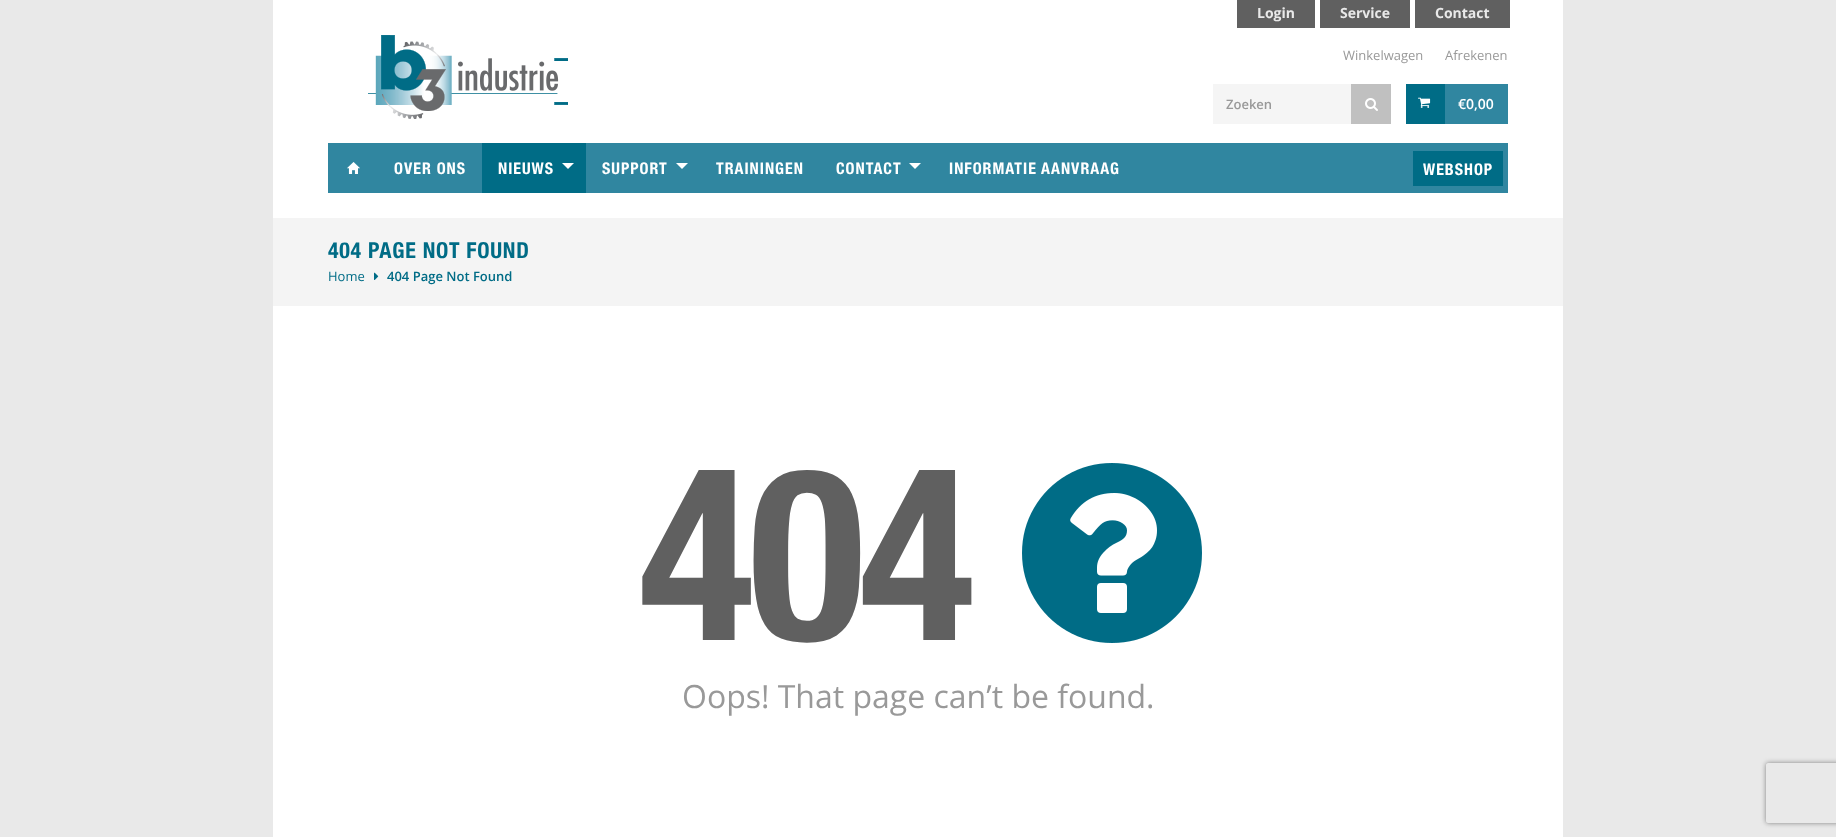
<?xml version="1.0" encoding="UTF-8"?>
<svg xmlns="http://www.w3.org/2000/svg" xmlns:xlink="http://www.w3.org/1999/xlink" width="1836" height="837">
  <defs>
    <clipPath id="clip1"><path d="M 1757 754 h 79 v 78 h -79 z m 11 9 h 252 c 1 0 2 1 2 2 v 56 c 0 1 -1 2 -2 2 h -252 c -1 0 -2 -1 -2 -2 v -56 c 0 -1 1 -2 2 -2 z" clip-rule="evenodd" /></clipPath>
  </defs>
  <rect width="100%" height="100%" fill="#e9e9e9" />
  <rect x="273" width="1290" height="837" fill="#ffffff" />
  <rect x="1237" width="78" height="28" fill="#606060" />
  <rect x="1320" width="90" height="28" fill="#606060" />
  <rect x="1415" width="95" height="28" fill="#606060" />
  <image x="368" y="35" width="200" height="84" xlink:href="image1.png" />
  <rect x="1213" y="84" width="138" height="40" fill="#f5f5f5" />
  <rect x="1351" y="84" width="40" height="40" fill="#c0c0c0" />
  <image x="1365" y="98" width="13" height="13" xlink:href="image2.png" />
  <rect x="1445" y="84" width="63" height="40" fill="#3086a0" />
  <rect x="1406" y="84" width="39" height="40" fill="#006c86" />
  <image x="1418" y="97" width="13" height="11" xlink:href="image3.png" />
  <rect x="328" y="143" width="1180" height="50" fill="#3086a0" />
  <image x="347" y="162" width="13" height="12" xlink:href="image4.png" />
  <rect x="482" y="143" width="104" height="50" fill="#006c86" />
  <path d="M 562 163 h 12 l -6 6 z" fill="#ffffff" />
  <path d="M 676 163 h 12 l -6 6 z" fill="#ffffff" />
  <path d="M 909 163 h 12 l -6 6 z" fill="#ffffff" />
  <rect x="1413" y="151" width="90" height="35" fill="#006c86" />
  <rect x="273" y="218" width="1290" height="88" fill="#f4f4f4" />
  <image x="374" y="272" width="5" height="8" xlink:href="image5.png" />
  <image x="1022" y="463" width="180" height="180" xlink:href="image6.png" />
  <g clip-path="url(#clip1)">
    <rect x="1766" y="763" width="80" height="60" rx="2" fill="#808080" filter="blur(2.5px)" />
  </g>
  <text x="1257" y="18" style="font-family: Open Sans; font-size: 14px; font-weight: bold; fill: #e9e9e9">Login</text>
  <text x="1340" y="18" style="font-family: Open Sans; font-size: 14px; font-weight: bold; fill: #e9e9e9">Service</text>
  <text x="1435" y="18" style="font-family: Open Sans; font-size: 14px; font-weight: bold; fill: #e9e9e9">Contact</text>
  <text x="1343" y="60" style="font-family: Open Sans; font-size: 13px; fill: #999999">Winkelwagen</text>
  <text x="1445" y="60" style="font-family: Open Sans; font-size: 13px; fill: #999999">Afrekenen</text>
  <text x="1226" y="109" style="font-family: Open Sans; font-size: 13px; font-weight: 600; fill: #999999">Zoeken</text>
  <text x="1458" y="109" style="font-family: Open Sans; font-size: 14px; font-weight: 600; fill: #ffffff">€0,00</text>
  <text x="394" y="174" style="font-family: Helvetica Neue; font-size: 16px; font-weight: bold; letter-spacing: 1px; fill: #ffffff">OVER ONS</text>
  <text x="498" y="174" style="font-family: Helvetica Neue; font-size: 16px; font-weight: bold; letter-spacing: 1px; fill: #ffffff">NIEUWS</text>
  <text x="602" y="174" style="font-family: Helvetica Neue; font-size: 16px; font-weight: bold; letter-spacing: 1px; fill: #ffffff">SUPPORT</text>
  <text x="716" y="174" style="font-family: Helvetica Neue; font-size: 16px; font-weight: bold; letter-spacing: 1px; fill: #ffffff">TRAININGEN</text>
  <text x="836" y="174" style="font-family: Helvetica Neue; font-size: 16px; font-weight: bold; letter-spacing: 1px; fill: #ffffff">CONTACT</text>
  <text x="949" y="174" style="font-family: Helvetica Neue; font-size: 16px; font-weight: bold; letter-spacing: 1px; fill: #ffffff">INFORMATIE AANVRAAG</text>
  <text x="1423" y="175" style="font-family: Helvetica Neue; font-size: 16px; font-weight: bold; letter-spacing: 1px; fill: #ffffff">WEBSHOP</text>
  <text x="328" y="258" style="font-family: Helvetica Neue; font-size: 22px; font-weight: bold; letter-spacing: 0.75px; fill: #006c86">404 PAGE NOT FOUND</text>
  <text x="328" y="281" style="font-family: Open Sans; font-size: 13px; fill: #006c86">Home</text>
  <text x="387" y="281" style="font-family: Open Sans; font-size: 13px; font-weight: 600; fill: #006c86">404 Page Not Found</text>
  <text x="639" y="640" style="font-family: Helvetica Neue; font-size: 240px; font-weight: bold; letter-spacing: -5px; fill: #606060">404</text>
  <text x="682" y="708" style="font-family: Open Sans; font-size: 32px; fill: #999999">Oops! That page can’t be found.</text>
</svg>
